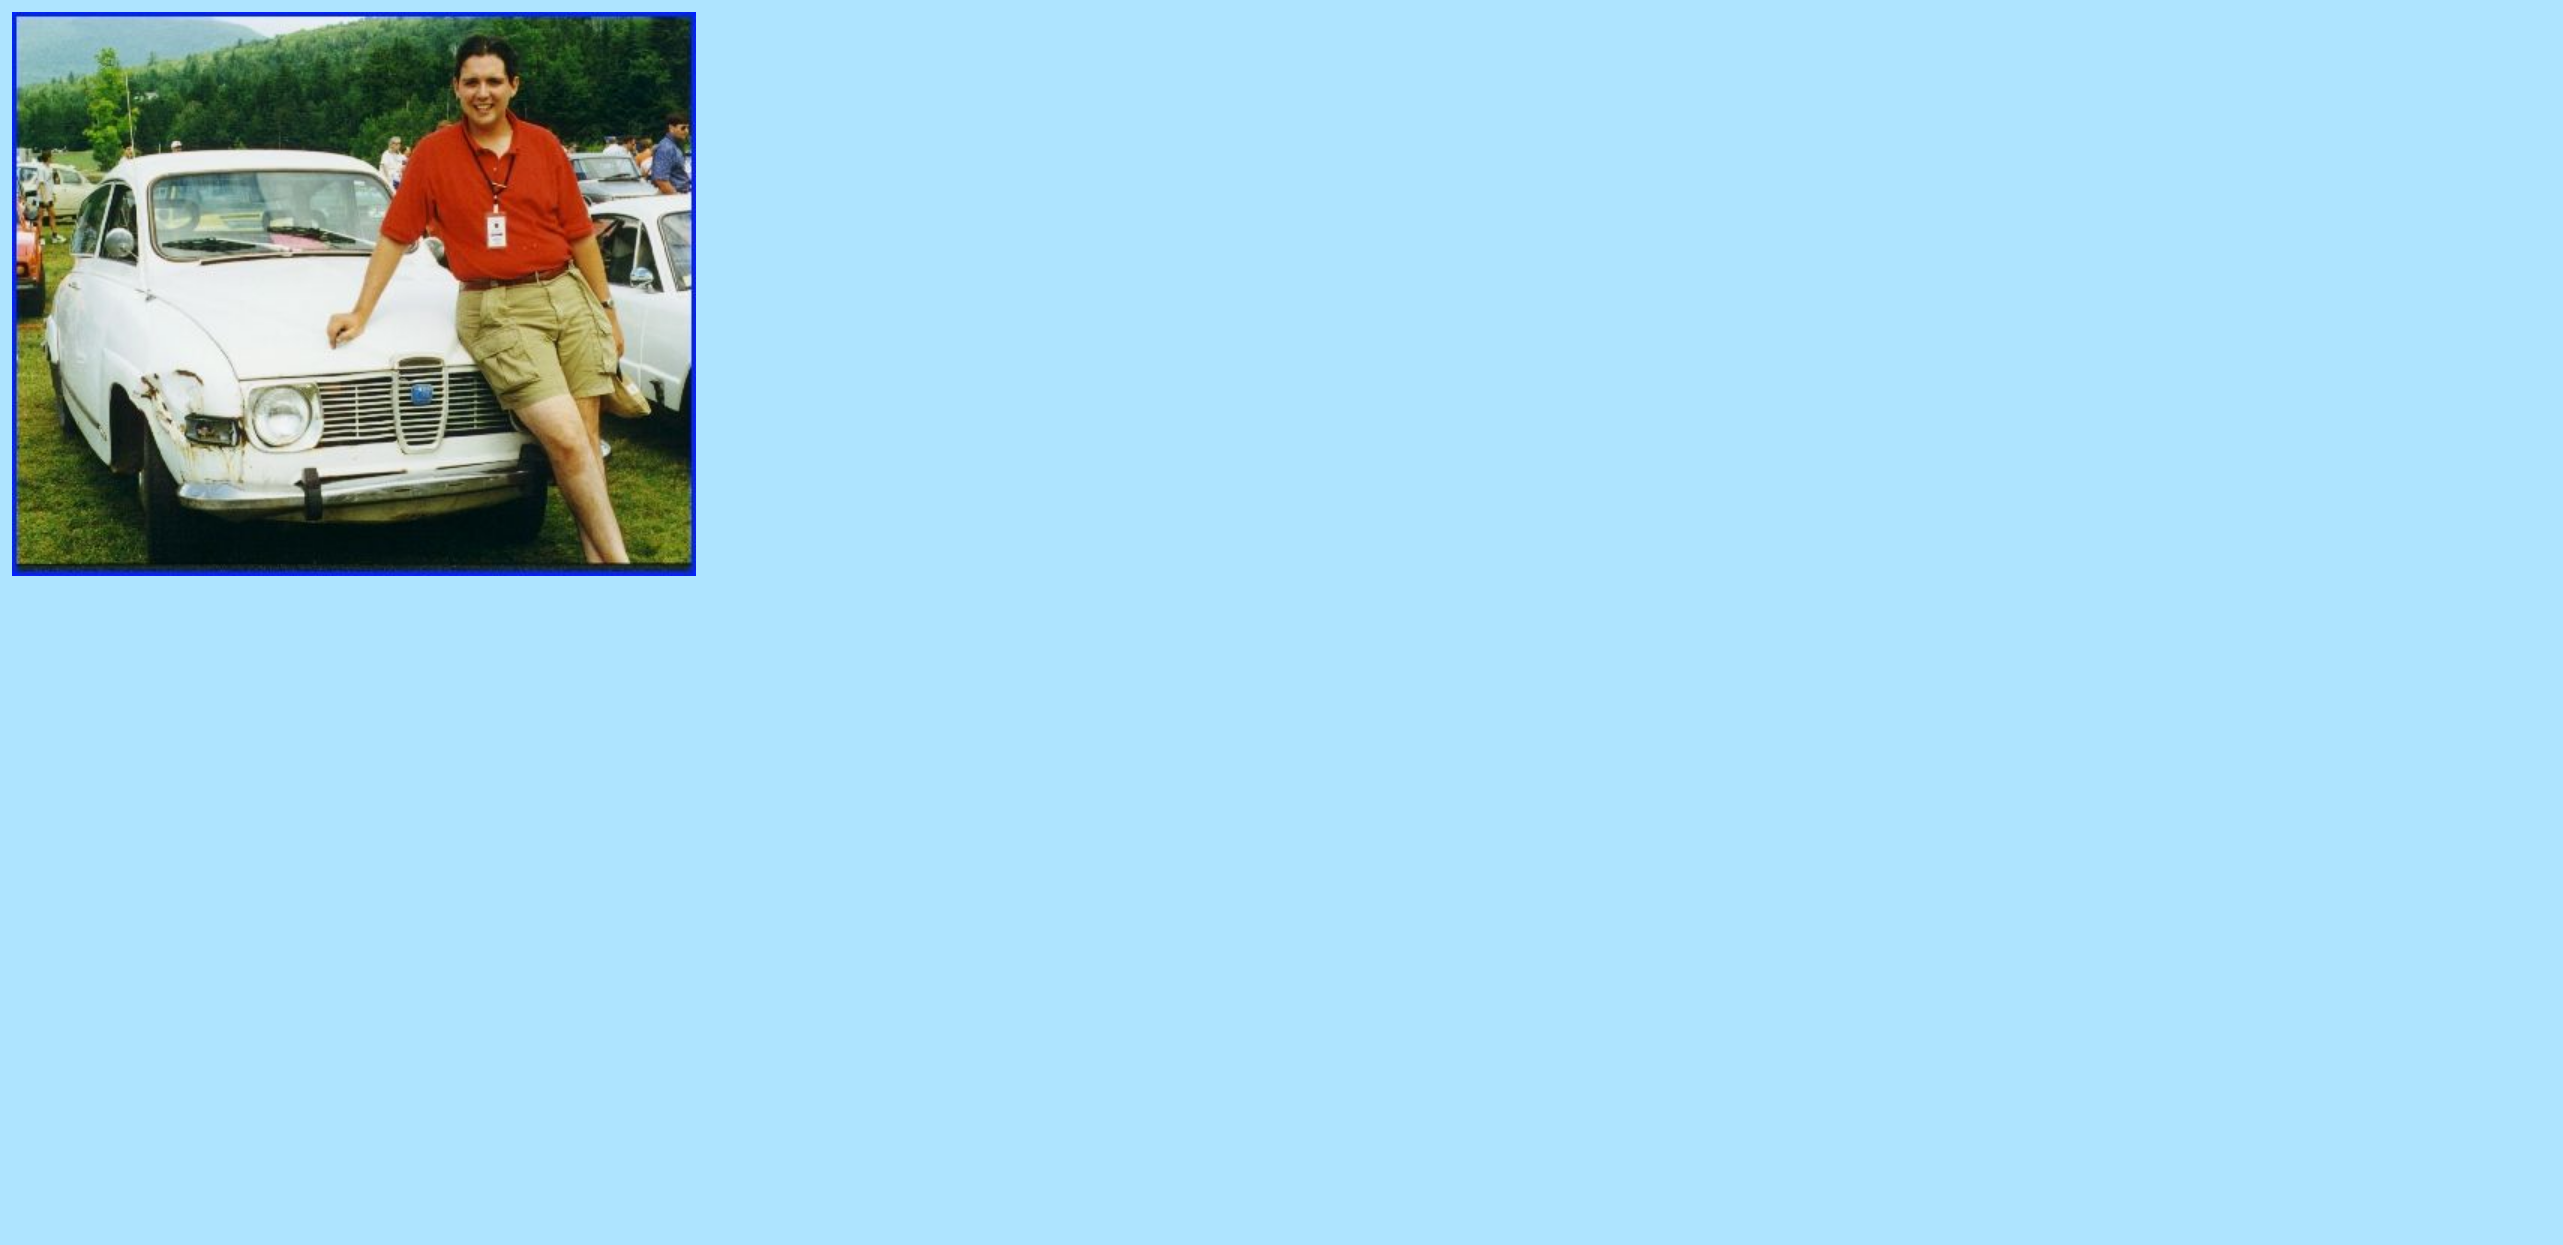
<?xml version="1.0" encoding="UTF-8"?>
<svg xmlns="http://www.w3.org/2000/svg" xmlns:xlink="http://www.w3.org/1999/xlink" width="2563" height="1245">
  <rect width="100%" height="100%" fill="#aee4ff" />
  <image x="12" y="12" width="684" height="564" xlink:href="image1.png" />
</svg>
